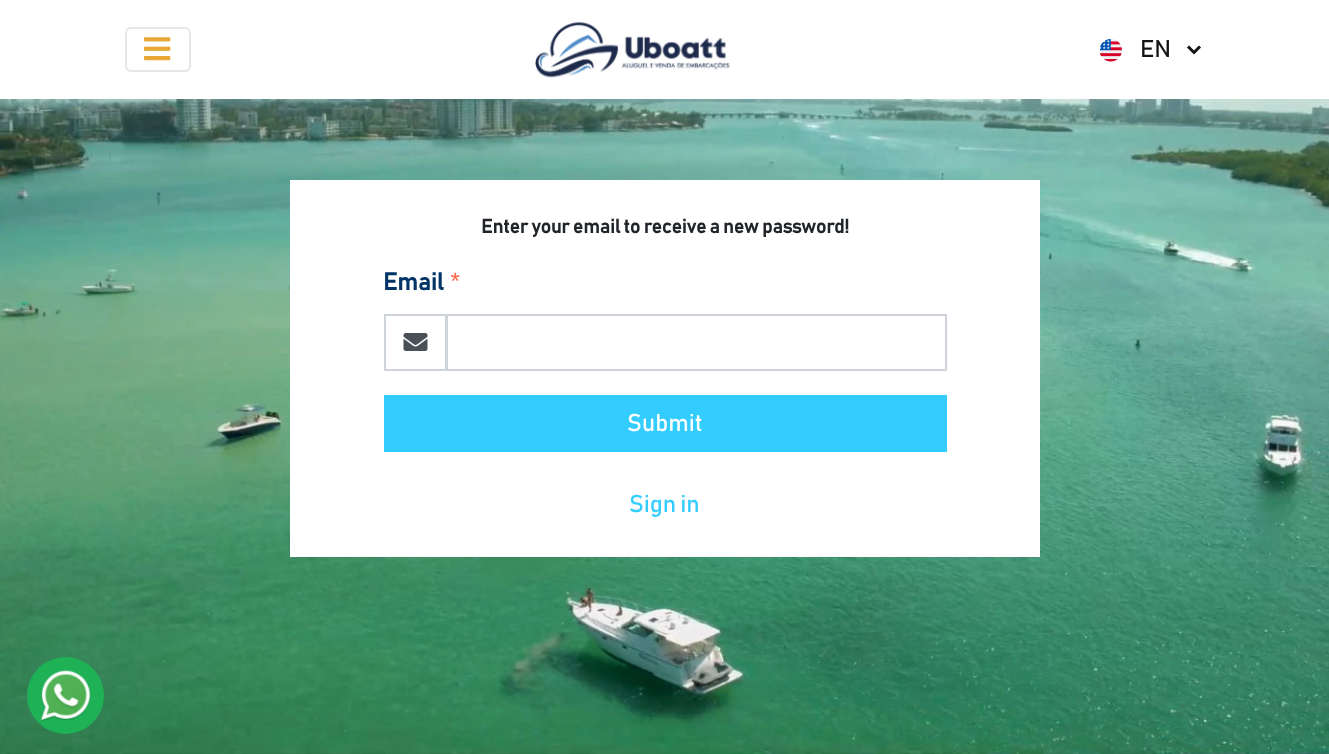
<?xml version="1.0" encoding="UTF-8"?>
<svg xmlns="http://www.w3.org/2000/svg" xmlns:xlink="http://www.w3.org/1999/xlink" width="1329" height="754">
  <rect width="100%" height="100%" fill="#ffffff" />
  <rect x="126" y="28" width="64" height="43" rx="5" fill="none" stroke="#e6e6e6" stroke-width="2" />
  <image x="144" y="37" width="27" height="24" xlink:href="image1.png" />
  <image x="535" y="22" width="195" height="56" xlink:href="image2.png" />
  <image x="1100" y="39" width="22" height="23" xlink:href="image3.png" />
  <path d="M 1188 46.5 l 6 6 l 6 -6" fill="none" stroke="#141414" stroke-width="3" />
  <image x="0" y="99" width="1329" height="655" xlink:href="image4.png" />
  <image x="0" y="99" width="1329" height="655" xlink:href="image5.png" />
  <rect x="290" y="180" width="750" height="377" fill="#ffffff" />
  <rect x="385" y="315" width="61" height="55" fill="none" stroke="#ced4da" stroke-width="2" />
  <image x="403" y="333" width="25" height="18" xlink:href="image6.png" />
  <rect x="447" y="315" width="499" height="55" fill="none" stroke="#ced4da" stroke-width="2" />
  <rect x="384" y="395" width="563" height="57" fill="#33ccff" />
  <circle cx="65.5" cy="695.5" r="38.5" fill="#1eb155" />
  <image x="40" y="670" width="51" height="51" xlink:href="image7.png" />
  <text x="1140" y="57" style="font-family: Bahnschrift; font-size: 24px; fill: #141414">EN</text>
  <text x="481" y="233" style="font-family: Bahnschrift; font-size: 19.25px; font-weight: bold; fill: #212529">Enter your email to receive a new password!</text>
  <text x="383" y="290" style="font-family: Bahnschrift; font-size: 24px; font-weight: bold; fill: #003366">Email</text>
  <text x="448" y="290" style="font-family: Liberation Mono; font-size: 24px; fill: #ff6347">*</text>
  <text x="627" y="431" style="font-family: Bahnschrift; font-size: 24px; fill: #ffffff">Submit</text>
  <text x="629" y="512" style="font-family: Bahnschrift; font-size: 24px; fill: #33ccff">Sign in</text>
</svg>
